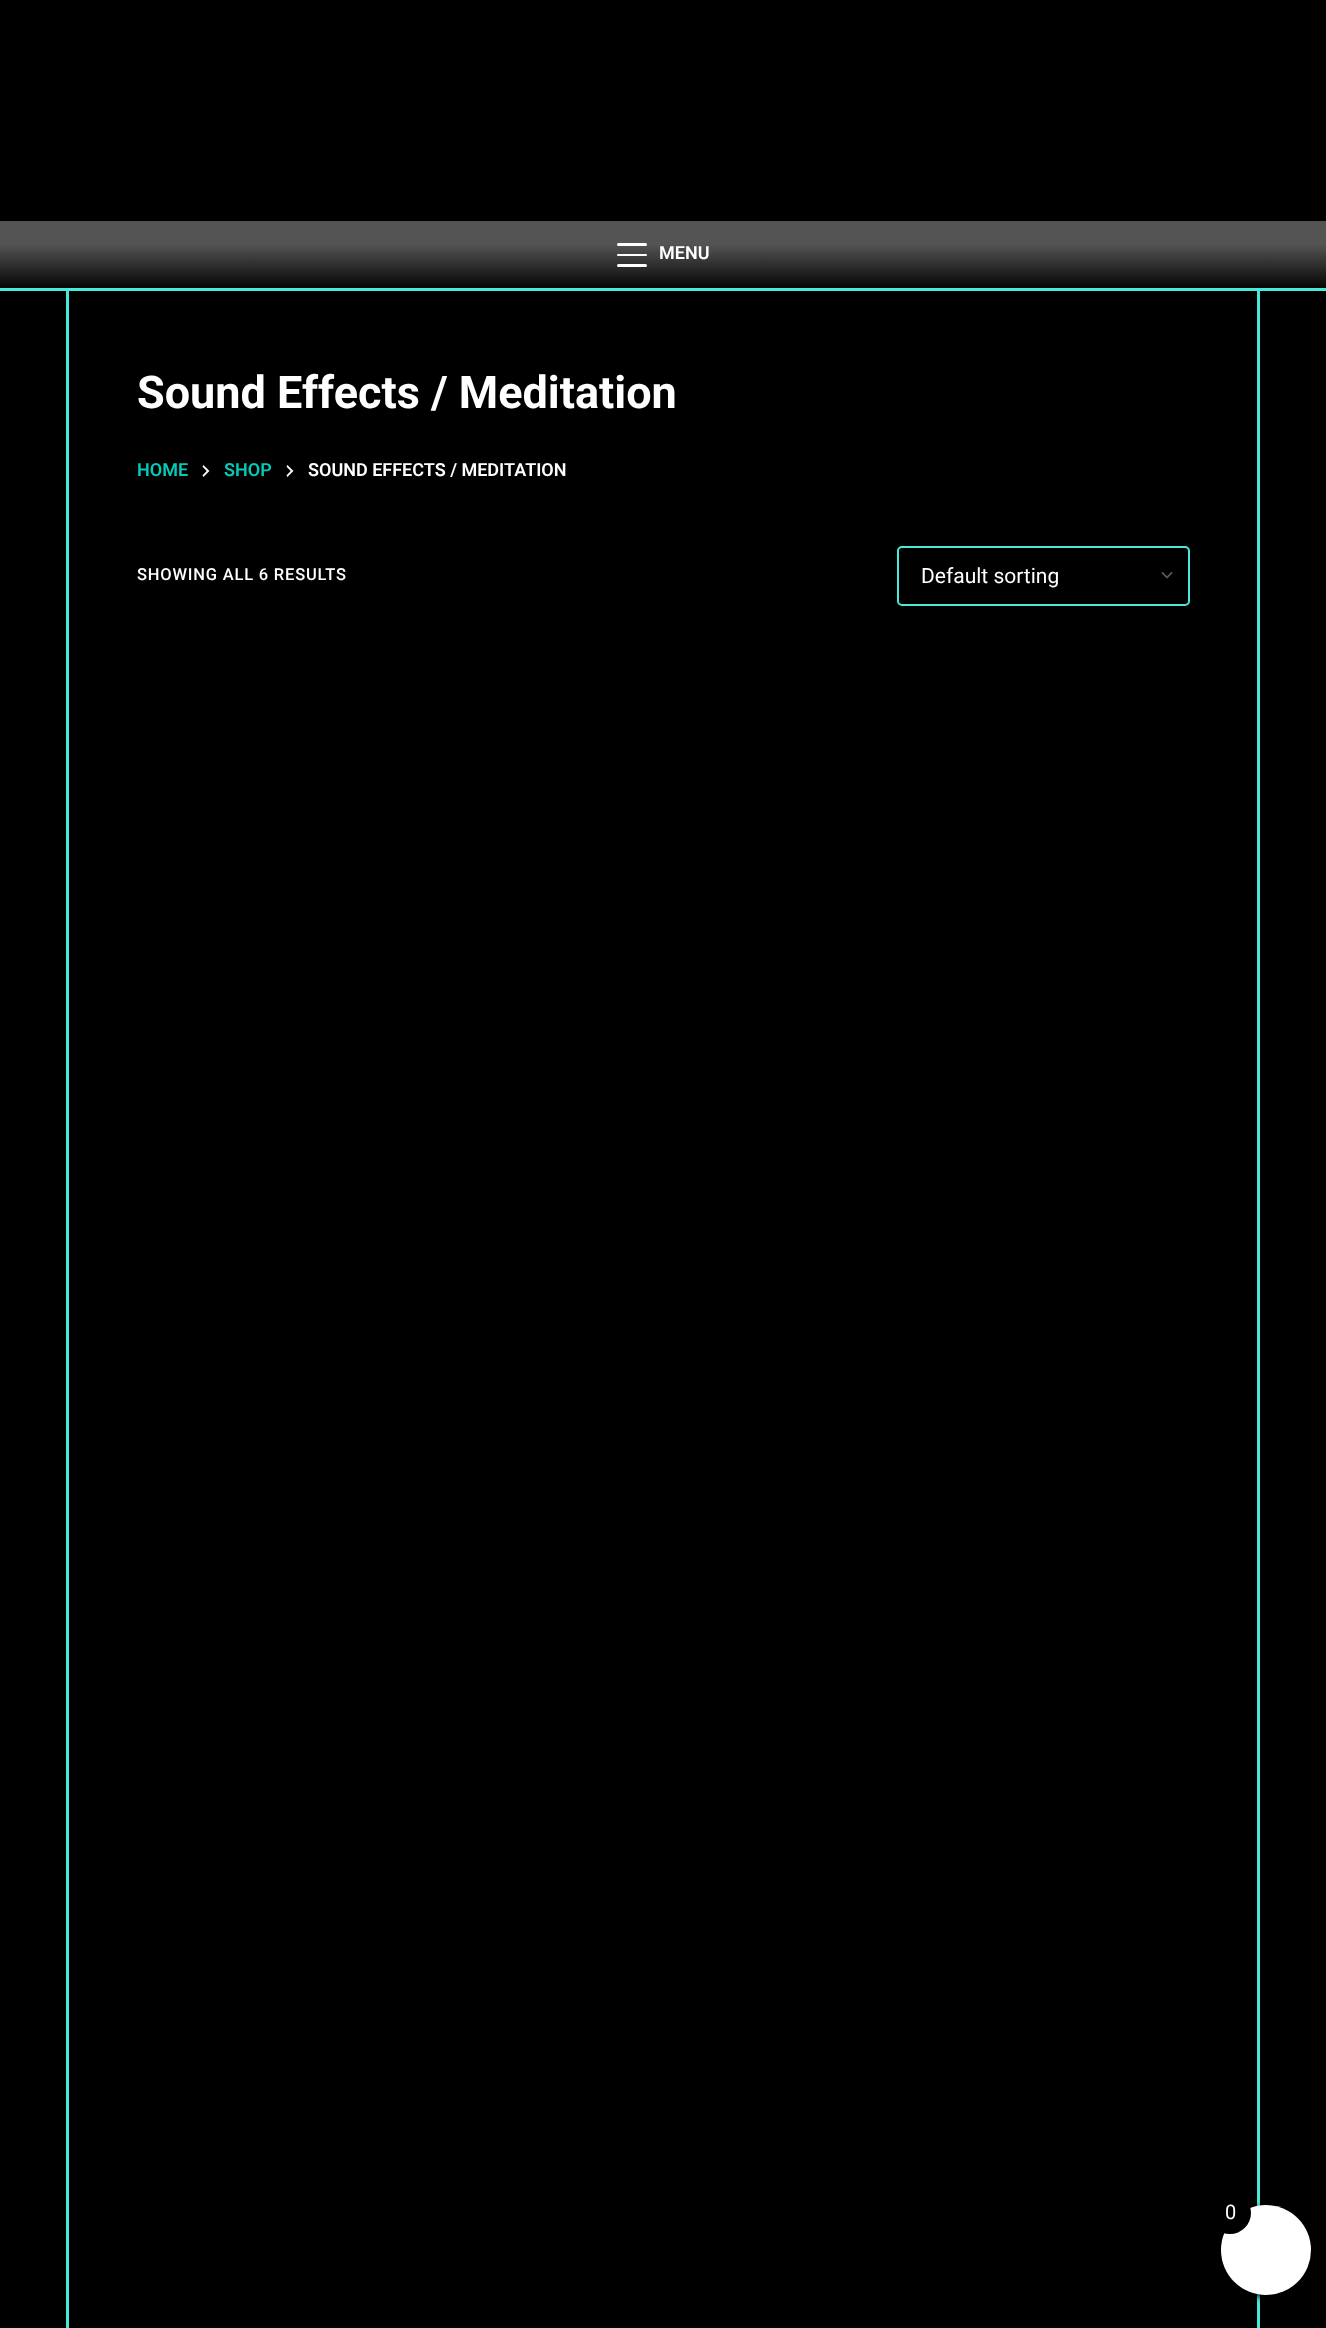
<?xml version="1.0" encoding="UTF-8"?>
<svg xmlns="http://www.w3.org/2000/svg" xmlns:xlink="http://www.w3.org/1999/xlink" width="1326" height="2328">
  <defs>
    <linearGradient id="g1" gradientUnits="userSpaceOnUse" x1="663" y1="291" x2="663" y2="221"><stop offset="0" stop-color="#000000" /><stop offset="0.67" stop-color="#545454" /></linearGradient>
  </defs>
  <rect width="100%" height="100%" fill="#000000" />
  <rect y="221" width="1326" height="67" fill="url(#g1)" />
  <rect y="288" width="1326" height="3" fill="#47eada" />
  <rect x="617" y="243" width="30" height="3" rx="1.5" fill="#ffffff" />
  <rect x="617" y="254" width="30" height="2" rx="1" fill="#ffffff" />
  <rect x="617" y="264" width="30" height="3" rx="1.5" fill="#ffffff" />
  <rect x="1257" y="291" width="3" height="2037" fill="#47eada" />
  <rect x="66" y="291" width="3" height="2037" fill="#47eada" />
  <image x="202" y="465" width="8" height="12" xlink:href="image1.png" />
  <image x="286" y="465" width="8" height="12" xlink:href="image1.png" />
  <image x="1161" y="572" width="12" height="7" xlink:href="image2.png" />
  <rect x="898" y="547" width="291" height="58" rx="4" fill="none" stroke="#47eada" stroke-width="2" />
  <rect x="1221" y="2207" width="90" height="90" rx="45" fill="#000000" filter="blur(3px)" />
  <circle cx="1266" cy="2250" r="45" fill="#ffffff" />
  <circle cx="1230" cy="2213" r="21" fill="#000000" />
  <text x="659" y="259" style="font-family: Roboto; font-size: 18px; font-weight: 600; fill: #ffffff">MENU</text>
  <text x="137" y="408" style="font-family: Roboto; font-size: 45px; font-weight: bold; fill: #ffffff">Sound Effects / Meditation</text>
  <text x="137" y="476" style="font-family: Roboto; font-size: 18px; font-weight: 600; fill: #05cab6">HOME</text>
  <text x="224" y="476" style="font-family: Roboto; font-size: 18px; font-weight: 600; fill: #05cab6">SHOP</text>
  <text x="308" y="476" style="font-family: Roboto; font-size: 18px; font-weight: 600; fill: #ffffff">SOUND EFFECTS / MEDITATION</text>
  <text x="137" y="580" style="font-family: Roboto; font-size: 16.5px; font-weight: 500; letter-spacing: 0.8px; fill: #ffffff">SHOWING ALL 6 RESULTS</text>
  <text x="921" y="583" style="font-family: Roboto; font-size: 21px; fill: #ffffff">Default sorting</text>
  <text x="1225" y="2219" style="font-family: Roboto; font-size: 20px; fill: #ffffff">0</text>
</svg>
